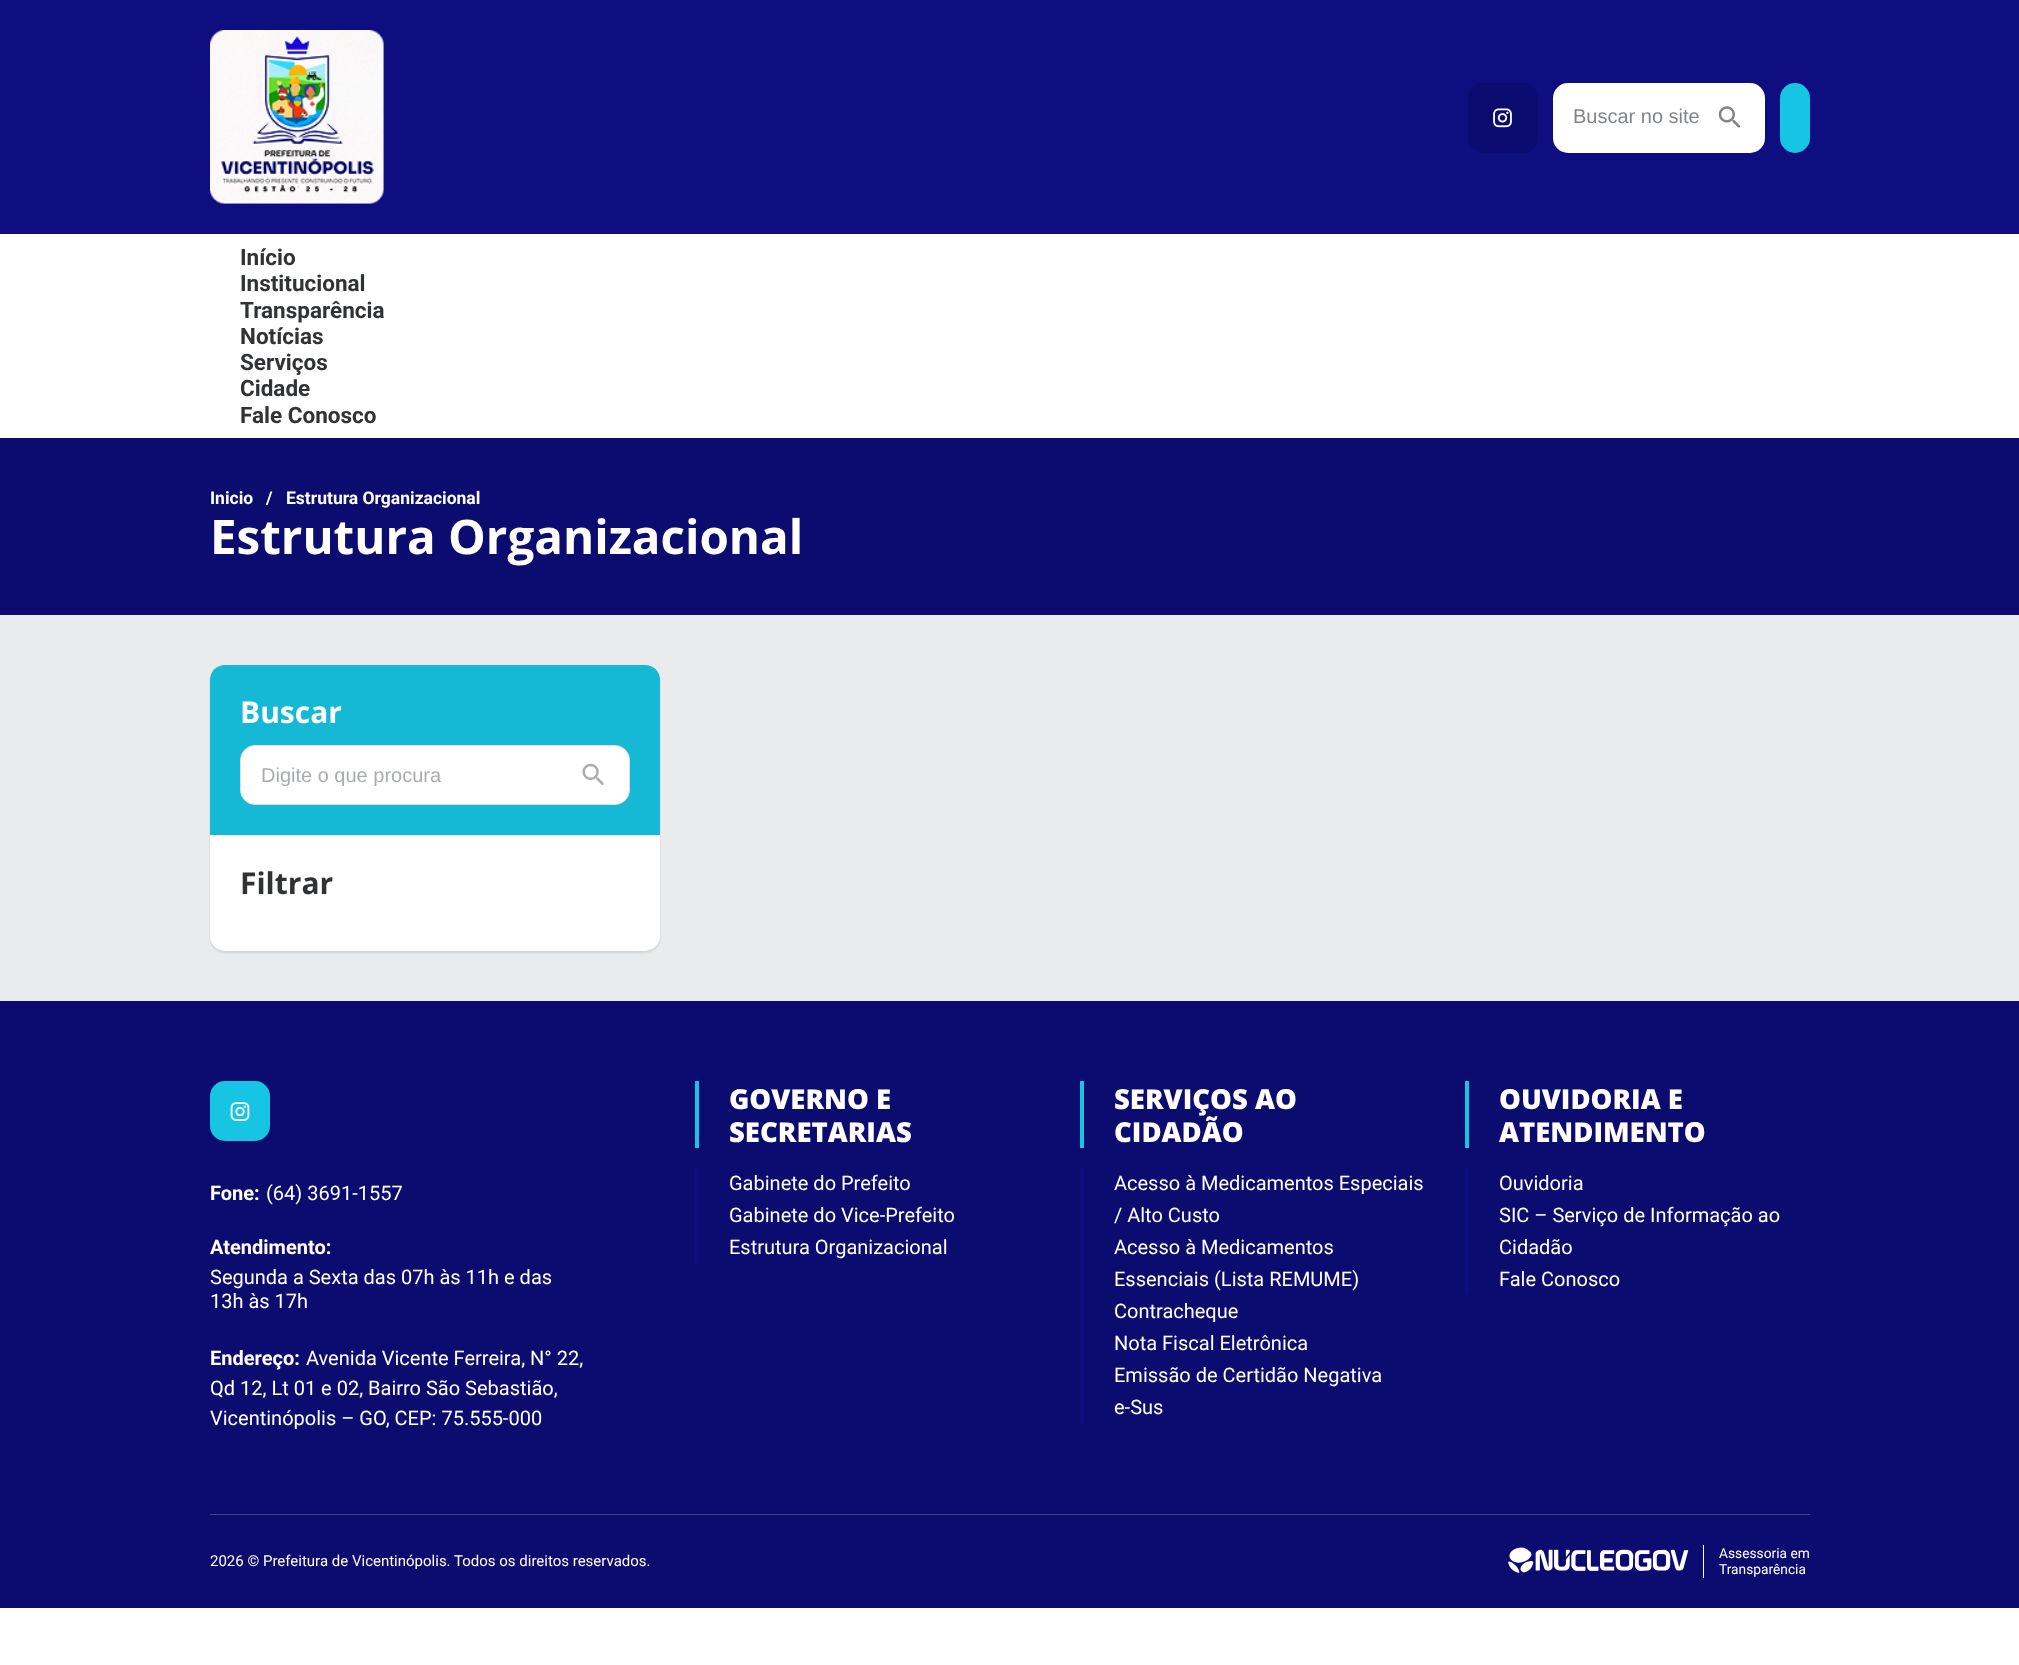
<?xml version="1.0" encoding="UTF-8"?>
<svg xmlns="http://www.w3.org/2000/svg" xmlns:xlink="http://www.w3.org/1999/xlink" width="2019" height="1665">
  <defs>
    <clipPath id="clip1"><rect x="261" y="764" width="303" height="22" /></clipPath>
  </defs>
  <rect width="100%" height="100%" fill="#ffffff" />
  <rect width="2019" height="234" fill="#0e0e81" />
  <image x="210" y="30" width="174" height="174" xlink:href="image1.png" />
  <rect x="1468" y="83" width="70" height="70" rx="15" fill="#0c0c70" />
  <image x="1493" y="108" width="19" height="20" xlink:href="image2.png" />
  <rect x="1553" y="83" width="212" height="70" rx="15" fill="#ffffff" />
  <image x="1718" y="106" width="22" height="22" xlink:href="image3.png" />
  <rect x="1780" y="83" width="30" height="70" rx="15" fill="#16c4e3" />
  <rect y="438" width="2019" height="177" fill="#0c0c70" />
  <rect y="615" width="2019" height="386" fill="#eaebed" />
  <rect x="210" y="666" width="450" height="287" rx="15" fill="#000000" fill-opacity="0.1" filter="blur(1px)" />
  <rect x="210" y="665" width="450" height="286" rx="15" fill="#ffffff" />
  <path d="M 225 665 h 420 c 8.5 0 15 6.5 15 15 v 155 h -450 v -155 c 0 -8.5 6.5 -15 15 -15 z" fill="#15b8d5" />
  <rect x="240.5" y="745.5" width="389" height="59" rx="14.5" fill="#ffffff" stroke="#dcdee0" />
  <image x="582" y="763" width="22" height="22" xlink:href="image4.png" />
  <rect y="1001" width="2019" height="607" fill="#0c0c70" />
  <rect x="210" y="1081" width="60" height="60" rx="15" fill="#16c4e3" />
  <image x="230" y="1102" width="20" height="19" xlink:href="image5.png" />
  <rect x="695" y="1081" width="4" height="67" fill="#16c4e3" />
  <rect x="695" y="1168" width="4" height="96" fill="#0e0e81" />
  <rect x="1080" y="1081" width="4" height="67" fill="#16c4e3" />
  <rect x="1080" y="1168" width="4" height="256" fill="#0e0e81" />
  <rect x="1465" y="1081" width="4" height="67" fill="#16c4e3" />
  <rect x="1465" y="1168" width="4" height="127" fill="#0e0e81" />
  <rect x="210" y="1514" width="1600" height="1" fill="#41418f" />
  <image x="1508" y="1547" width="181" height="26" xlink:href="image6.png" />
  <rect x="1703" y="1545" width="1" height="33" fill="#ffffff" />
  <text x="1573" y="123" style="font-family: Liberation Sans; font-size: 20px; fill: #828588">Buscar no site</text>
  <text x="240" y="265" style="font-family: Roboto; font-size: 22.5px; font-weight: bold; fill: #303234">Início</text>
  <text x="240" y="291" style="font-family: Roboto; font-size: 22.5px; font-weight: bold; fill: #303234">Institucional</text>
  <text x="240" y="318" style="font-family: Roboto; font-size: 22.5px; font-weight: bold; fill: #303234">Transparência</text>
  <text x="240" y="344" style="font-family: Roboto; font-size: 22.5px; font-weight: bold; fill: #303234">Notícias</text>
  <text x="240" y="370" style="font-family: Roboto; font-size: 22.5px; font-weight: bold; fill: #303234">Serviços</text>
  <text x="240" y="396" style="font-family: Roboto; font-size: 22.5px; font-weight: bold; fill: #303234">Cidade</text>
  <text x="240" y="423" style="font-family: Roboto; font-size: 22.5px; font-weight: bold; fill: #303234">Fale Conosco</text>
  <text x="210" y="504" style="font-family: Roboto; font-size: 17.5px; font-weight: bold; fill: #ffffff">Inicio</text>
  <text x="266" y="504" style="font-family: Roboto; font-size: 17.5px; font-weight: bold; fill: #ffffff">/</text>
  <text x="286" y="504" style="font-family: Roboto; font-size: 17.5px; font-weight: bold; fill: #ffffff">Estrutura Organizacional</text>
  <text x="210" y="554" style="font-family: Open Sans; font-size: 47.5px; font-weight: bold; fill: #ffffff">Estrutura Organizacional</text>
  <text x="240" y="723" style="font-family: Open Sans; font-size: 30px; font-weight: bold; fill: #ffffff">Buscar</text>
  <g clip-path="url(#clip1)">
    <text x="261" y="782" style="font-family: Liberation Sans; font-size: 20px; fill: #aaadb0">Digite o que procura</text>
  </g>
  <text x="240" y="894" style="font-family: Open Sans; font-size: 30px; font-weight: bold; fill: #303234">Filtrar</text>
  <text x="210" y="1200" style="font-family: Roboto; font-size: 20px; font-weight: bold; fill: #ffffff">Fone:</text>
  <text x="266" y="1200" style="font-family: Roboto; font-size: 20px; fill: #ffffff">(64) 3691-1557</text>
  <text x="210" y="1254" style="font-family: Roboto; font-size: 20px; font-weight: bold; fill: #ffffff">Atendimento:</text>
  <text x="210" y="1284" style="font-family: Roboto; font-size: 20px; fill: #ffffff">Segunda a Sexta das 07h às 11h e das</text>
  <text x="210" y="1308" style="font-family: Roboto; font-size: 20px; fill: #ffffff">13h às 17h</text>
  <text x="306" y="1365" style="font-family: Roboto; font-size: 20px; fill: #ffffff">Avenida Vicente Ferreira, N° 22,</text>
  <text x="210" y="1395" style="font-family: Roboto; font-size: 20px; fill: #ffffff">Qd 12, Lt 01 e 02, Bairro São Sebastião,</text>
  <text x="210" y="1425" style="font-family: Roboto; font-size: 20px; fill: #ffffff">Vicentinópolis – GO, CEP: 75.555-000</text>
  <text x="210" y="1365" style="font-family: Roboto; font-size: 20px; font-weight: bold; fill: #ffffff">Endereço:</text>
  <text x="729" y="1109" style="font-family: Open Sans; font-size: 27.5px; font-weight: 800; fill: #ffffff">GOVERNO E</text>
  <text x="729" y="1142" style="font-family: Open Sans; font-size: 27.5px; font-weight: 800; fill: #ffffff">SECRETARIAS</text>
  <text x="729" y="1190" style="font-family: Roboto; font-size: 20px; fill: #ffffff">Gabinete do Prefeito</text>
  <text x="729" y="1222" style="font-family: Roboto; font-size: 20px; fill: #ffffff">Gabinete do Vice-Prefeito</text>
  <text x="729" y="1254" style="font-family: Roboto; font-size: 20px; fill: #ffffff">Estrutura Organizacional</text>
  <text x="1114" y="1109" style="font-family: Open Sans; font-size: 27.5px; font-weight: 800; fill: #ffffff">SERVIÇOS AO</text>
  <text x="1114" y="1142" style="font-family: Open Sans; font-size: 27.5px; font-weight: 800; fill: #ffffff">CIDADÃO</text>
  <text x="1114" y="1190" style="font-family: Roboto; font-size: 20px; fill: #ffffff">Acesso à Medicamentos Especiais</text>
  <text x="1114" y="1222" style="font-family: Roboto; font-size: 20px; fill: #ffffff">/ Alto Custo</text>
  <text x="1114" y="1254" style="font-family: Roboto; font-size: 20px; fill: #ffffff">Acesso à Medicamentos</text>
  <text x="1114" y="1286" style="font-family: Roboto; font-size: 20px; fill: #ffffff">Essenciais (Lista REMUME)</text>
  <text x="1114" y="1318" style="font-family: Roboto; font-size: 20px; fill: #ffffff">Contracheque</text>
  <text x="1114" y="1350" style="font-family: Roboto; font-size: 20px; fill: #ffffff">Nota Fiscal Eletrônica</text>
  <text x="1114" y="1382" style="font-family: Roboto; font-size: 20px; fill: #ffffff">Emissão de Certidão Negativa</text>
  <text x="1114" y="1414" style="font-family: Roboto; font-size: 20px; fill: #ffffff">e-Sus</text>
  <text x="1499" y="1109" style="font-family: Open Sans; font-size: 27.5px; font-weight: 800; fill: #ffffff">OUVIDORIA E</text>
  <text x="1499" y="1142" style="font-family: Open Sans; font-size: 27.5px; font-weight: 800; fill: #ffffff">ATENDIMENTO</text>
  <text x="1499" y="1190" style="font-family: Roboto; font-size: 20px; fill: #ffffff">Ouvidoria</text>
  <text x="1499" y="1222" style="font-family: Roboto; font-size: 20px; fill: #ffffff">SIC – Serviço de Informação ao</text>
  <text x="1499" y="1254" style="font-family: Roboto; font-size: 20px; fill: #ffffff">Cidadão</text>
  <text x="1499" y="1286" style="font-family: Roboto; font-size: 20px; fill: #ffffff">Fale Conosco</text>
  <text x="210" y="1566" style="font-family: Roboto; font-size: 15px; fill: #ffffff">2026 © Prefeitura de Vicentinópolis. Todos os direitos reservados.</text>
  <text x="1719" y="1558" style="font-family: Roboto; font-size: 13.75px; fill: #ffffff">Assessoria em</text>
  <text x="1719" y="1574" style="font-family: Roboto; font-size: 13.75px; fill: #ffffff">Transparência</text>
</svg>
